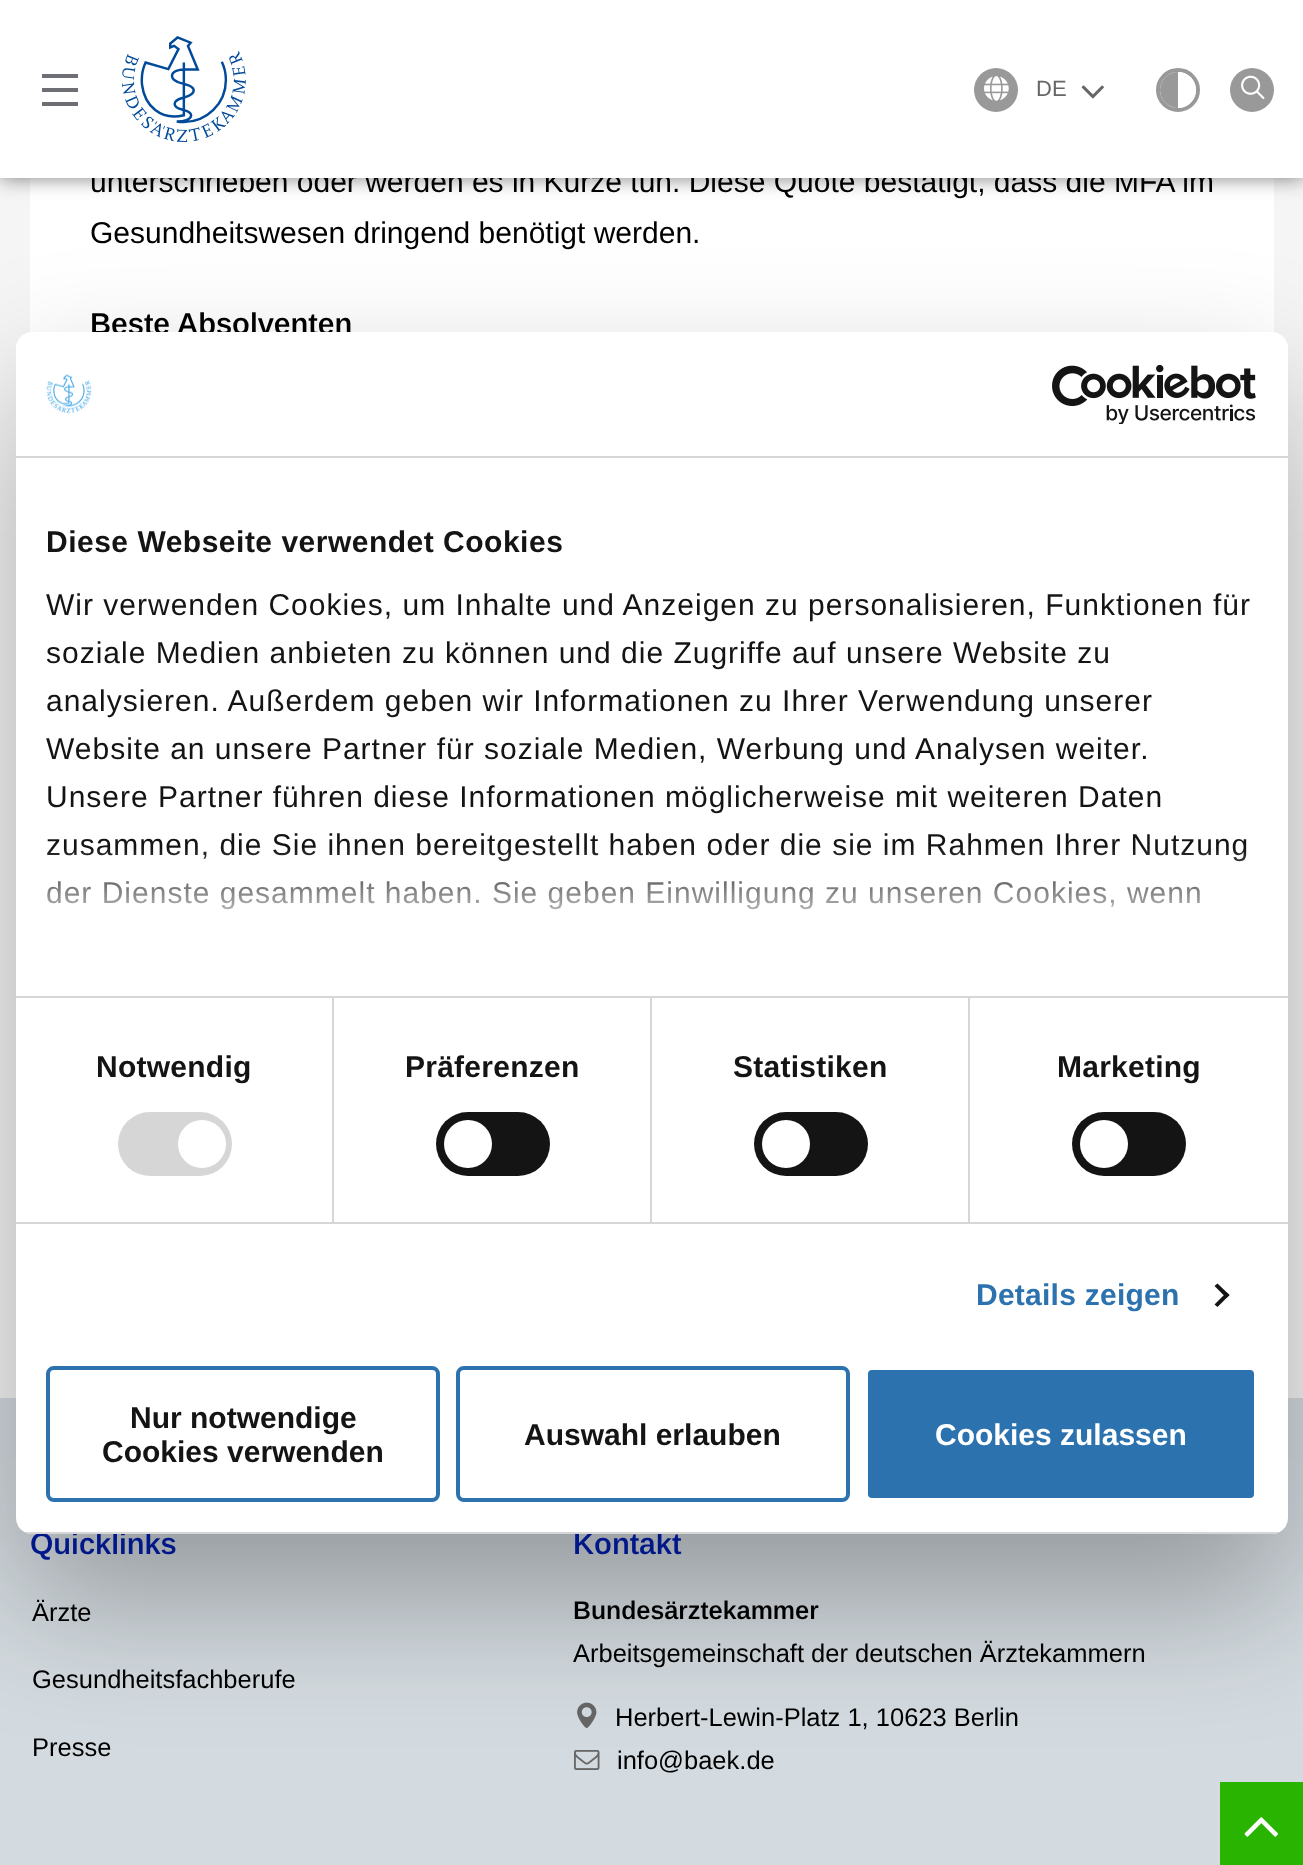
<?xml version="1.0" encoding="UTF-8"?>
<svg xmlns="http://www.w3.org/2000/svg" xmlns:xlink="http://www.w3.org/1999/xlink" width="1303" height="1865">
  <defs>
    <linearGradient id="g1" gradientUnits="userSpaceOnUse" x1="639" y1="997" x2="639" y2="847"><stop offset="0" stop-color="#ffffff" /><stop offset="0.5" stop-color="#ffffff" stop-opacity="0.8" /><stop offset="1" stop-color="#ffffff" stop-opacity="0" /></linearGradient>
    <clipPath id="clip1"><rect x="16" y="332" width="1272" height="1202" rx="16" /></clipPath>
  </defs>
  <rect width="100%" height="100%" fill="#f5f5f5" />
  <rect x="30" y="178" width="1244" height="155" fill="#ffffff" />
  <rect y="-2" width="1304" height="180" fill="#000000" fill-opacity="0.5" filter="blur(10px)" />
  <rect y="1398" width="1303" height="467" fill="#d4dbe0" />
  <image x="577" y="1702" width="20" height="27" xlink:href="image7.png" />
  <image x="574" y="1750" width="26" height="20" xlink:href="image8.png" />
  <rect x="1220" y="1782" width="83" height="83" fill="#28b400" />
  <rect x="16" y="396" width="1272" height="1202" rx="16" fill="#000000" fill-opacity="0.3" filter="blur(68px)" />
  <image x="1244" y="1817" width="34" height="20" xlink:href="image9.png" />
  <text x="90" y="192" style="font-family: Arimo; font-size: 30px; fill: #000000">unterschrieben oder werden es in Kürze tun. Diese Quote bestätigt, dass die MFA im</text>
  <rect width="1303" height="178" fill="#ffffff" />
  <rect x="42" y="102" width="36" height="4" fill="#6e6f74" />
  <rect x="42" y="88" width="36" height="4" fill="#6e6f74" />
  <rect x="42" y="74" width="36" height="4" fill="#6e6f74" />
  <image x="1081" y="85" width="23" height="14" xlink:href="image3.png" />
  <text x="1036" y="96" style="font-family: Arimo; font-size: 22px; fill: #666666">DE</text>
  <circle cx="996" cy="90" r="22" fill="#999999" />
  <image x="984" y="76" width="25" height="25" xlink:href="image2.png" />
  <circle cx="1178" cy="90" r="20" fill="none" stroke="#999999" stroke-width="4" />
  <path d="M 1178 72 c 10 0 18 8 18 18 c 0 10 -8 18 -18 18 z" fill="#ffffff" />
  <path d="M 1178 72 v 36 c -10 0 -18 -8 -18 -18 c 0 -10 8 -18 18 -18 z" fill="#999999" />
  <circle cx="1252" cy="90" r="22" fill="#999999" />
  <image x="1241" y="75" width="24" height="24" xlink:href="image4.png" />
  <image x="122" y="36" width="124" height="106" xlink:href="image1.png" />
  <text x="90" y="243" style="font-family: Arimo; font-size: 30px; fill: #000000">Gesundheitswesen dringend benötigt werden.</text>
  <text x="90" y="334" style="font-family: Arimo; font-size: 30px; font-weight: 600; fill: #000000">Beste Absolventen</text>
  <text x="30" y="1554" style="font-family: Arimo; font-size: 30px; font-weight: 600; fill: #001789">Quicklinks</text>
  <text x="32" y="1621" style="font-family: Arimo; font-size: 25.5px; fill: #000000">Ärzte</text>
  <text x="32" y="1688" style="font-family: Arimo; font-size: 25.5px; fill: #000000">Gesundheitsfachberufe</text>
  <text x="32" y="1756" style="font-family: Arimo; font-size: 25.5px; fill: #000000">Presse</text>
  <text x="573" y="1554" style="font-family: Arimo; font-size: 30px; font-weight: 600; fill: #001789">Kontakt</text>
  <rect x="16" y="332" width="1272" height="1202" rx="16" fill="#ffffff" />
  <text x="46" y="903" style="font-family: Liberation Sans; font-size: 30px; letter-spacing: 1px; fill: #141414">der Dienste gesammelt haben. Sie geben Einwilligung zu unseren Cookies, wenn</text>
  <text x="46" y="855" style="font-family: Liberation Sans; font-size: 30px; letter-spacing: 1px; fill: #141414">zusammen, die Sie ihnen bereitgestellt haben oder die sie im Rahmen Ihrer Nutzung</text>
  <rect x="47" y="849" width="1200" height="61" fill="url(#g1)" />
  <rect x="866" y="1368" width="390" height="132" rx="6" fill="#2b72ae" stroke="#ffffff" stroke-width="4" />
  <text x="935" y="1445" style="font-family: Liberation Sans; font-size: 30px; font-weight: bold; fill: #ffffff">Cookies zulassen</text>
  <rect x="458" y="1368" width="390" height="132" rx="6" fill="none" stroke="#2b72ae" stroke-width="4" />
  <text x="524" y="1445" style="font-family: Liberation Sans; font-size: 30px; font-weight: bold; fill: #141414">Auswahl erlauben</text>
  <rect x="48" y="1368" width="390" height="132" rx="6" fill="none" stroke="#2b72ae" stroke-width="4" />
  <text x="102" y="1462" style="font-family: Liberation Sans; font-size: 30px; font-weight: bold; fill: #141414">Cookies verwenden</text>
  <text x="130" y="1428" style="font-family: Liberation Sans; font-size: 30px; font-weight: bold; fill: #141414">Nur notwendige</text>
  <g clip-path="url(#clip1)">
    <rect x="16" y="1532" width="1272" height="2" fill="#d6d6d6" />
  </g>
  <path d="M 1217.5 1283.5 l 12 11.5 l -3 3 l -12 -12 z" fill="#141414" />
  <path d="M 1226.5 1292.5 l 3 2.5 l -12 12 l -3 -2.5 z" fill="#141414" />
  <rect x="1072" y="1112" width="114" height="64" rx="32" fill="#141414" />
  <circle cx="1104" cy="1144" r="24" fill="#ffffff" />
  <rect x="754" y="1112" width="114" height="64" rx="32" fill="#141414" />
  <circle cx="786" cy="1144" r="24" fill="#ffffff" />
  <rect x="436" y="1112" width="114" height="64" rx="32" fill="#141414" />
  <circle cx="468" cy="1144" r="24" fill="#ffffff" />
  <rect x="118" y="1112" width="114" height="64" rx="32" fill="#d6d6d6" />
  <circle cx="202" cy="1144" r="24" fill="#ffffff" />
  <text x="46" y="807" style="font-family: Liberation Sans; font-size: 30px; letter-spacing: 1px; fill: #141414">Unsere Partner führen diese Informationen möglicherweise mit weiteren Daten</text>
  <text x="46" y="759" style="font-family: Liberation Sans; font-size: 30px; letter-spacing: 1px; fill: #141414">Website an unsere Partner für soziale Medien, Werbung und Analysen weiter.</text>
  <text x="46" y="711" style="font-family: Liberation Sans; font-size: 30px; letter-spacing: 1px; fill: #141414">analysieren. Außerdem geben wir Informationen zu Ihrer Verwendung unserer</text>
  <text x="46" y="663" style="font-family: Liberation Sans; font-size: 30px; letter-spacing: 1px; fill: #141414">soziale Medien anbieten zu können und die Zugriffe auf unsere Website zu</text>
  <text x="46" y="615" style="font-family: Liberation Sans; font-size: 30px; letter-spacing: 1px; fill: #141414">Wir verwenden Cookies, um Inhalte und Anzeigen zu personalisieren, Funktionen für</text>
  <text x="46" y="552" style="font-family: Liberation Sans; font-size: 30px; font-weight: bold; letter-spacing: 0.5px; fill: #141414">Diese Webseite verwendet Cookies</text>
  <rect x="16" y="996" width="1272" height="2" fill="#d6d6d6" />
  <text x="976" y="1305" style="font-family: Liberation Sans; font-size: 30px; font-weight: bold; letter-spacing: 0.25px; fill: #2b72ae">Details zeigen</text>
  <text x="1057" y="1077" style="font-family: Liberation Sans; font-size: 30px; font-weight: bold; letter-spacing: 0.25px; fill: #141414">Marketing</text>
  <text x="733" y="1077" style="font-family: Liberation Sans; font-size: 30px; font-weight: bold; letter-spacing: 0.25px; fill: #141414">Statistiken</text>
  <rect x="968" y="998" width="2" height="224" fill="#d6d6d6" />
  <text x="405" y="1077" style="font-family: Liberation Sans; font-size: 30px; font-weight: bold; letter-spacing: 0.25px; fill: #141414">Präferenzen</text>
  <rect x="650" y="998" width="2" height="224" fill="#d6d6d6" />
  <text x="96" y="1077" style="font-family: Liberation Sans; font-size: 30px; font-weight: bold; letter-spacing: 0.25px; fill: #141414">Notwendig</text>
  <rect x="332" y="998" width="2" height="224" fill="#d6d6d6" />
  <rect x="16" y="1222" width="1272" height="2" fill="#d6d6d6" />
  <image x="1052" y="364" width="204" height="60" xlink:href="image6.png" />
  <image x="46" y="374" width="46" height="40" xlink:href="image5.png" />
  <rect x="16" y="456" width="1272" height="2" fill="#d6d6d6" />
  <text x="573" y="1619" style="font-family: Arimo; font-size: 25.5px; font-weight: 600; fill: #000000">Bundesärztekammer</text>
  <text x="573" y="1662" style="font-family: Arimo; font-size: 25.5px; fill: #000000">Arbeitsgemeinschaft der deutschen Ärztekammern</text>
  <text x="615" y="1726" style="font-family: Arimo; font-size: 25.5px; fill: #000000">Herbert-Lewin-Platz 1, 10623 Berlin</text>
  <text x="617" y="1769" style="font-family: Arimo; font-size: 25.5px; fill: #000000">info@baek.de</text>
</svg>
